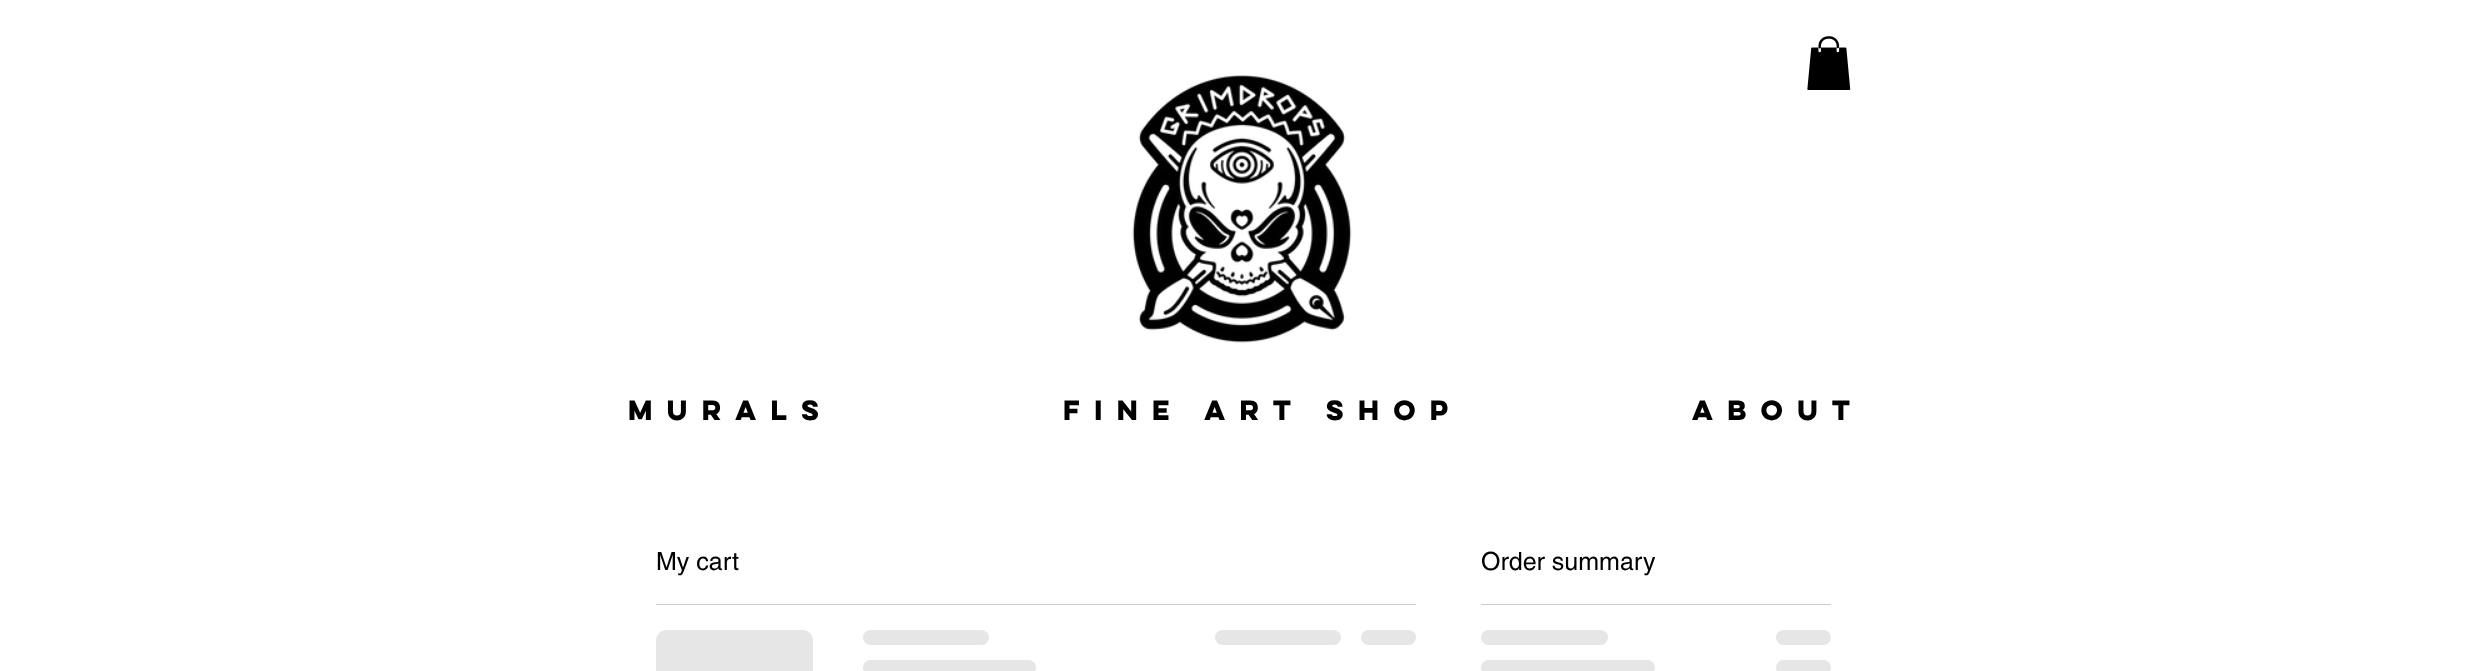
<?xml version="1.0" encoding="UTF-8"?>
<svg xmlns="http://www.w3.org/2000/svg" xmlns:xlink="http://www.w3.org/1999/xlink" width="2486" height="671">
  <defs>
    <linearGradient id="g1" gradientUnits="userSpaceOnUse" x1="656" y1="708" x2="1281" y2="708"><stop offset="0.25" stop-color="#e6e6e6" /><stop offset="0.37" stop-color="#cccccc" /><stop offset="0.63" stop-color="#e6e6e6" /></linearGradient>
    <linearGradient id="g2" gradientUnits="userSpaceOnUse" x1="863" y1="638" x2="1368" y2="638"><stop offset="0.25" stop-color="#e6e6e6" /><stop offset="0.37" stop-color="#cccccc" /><stop offset="0.63" stop-color="#e6e6e6" /></linearGradient>
    <linearGradient id="g3" gradientUnits="userSpaceOnUse" x1="863" y1="668" x2="1558" y2="668"><stop offset="0.25" stop-color="#e6e6e6" /><stop offset="0.37" stop-color="#cccccc" /><stop offset="0.63" stop-color="#e6e6e6" /></linearGradient>
    <linearGradient id="g4" gradientUnits="userSpaceOnUse" x1="1215" y1="638" x2="1720" y2="638"><stop offset="0.25" stop-color="#e6e6e6" /><stop offset="0.37" stop-color="#cccccc" /><stop offset="0.63" stop-color="#e6e6e6" /></linearGradient>
    <linearGradient id="g5" gradientUnits="userSpaceOnUse" x1="1361" y1="638" x2="1581" y2="638"><stop offset="0.25" stop-color="#e6e6e6" /><stop offset="0.37" stop-color="#cccccc" /><stop offset="0.63" stop-color="#e6e6e6" /></linearGradient>
    <linearGradient id="g6" gradientUnits="userSpaceOnUse" x1="1481" y1="638" x2="1986" y2="638"><stop offset="0.25" stop-color="#e6e6e6" /><stop offset="0.37" stop-color="#cccccc" /><stop offset="0.63" stop-color="#e6e6e6" /></linearGradient>
    <linearGradient id="g7" gradientUnits="userSpaceOnUse" x1="1776" y1="638" x2="1996" y2="638"><stop offset="0.25" stop-color="#e6e6e6" /><stop offset="0.37" stop-color="#cccccc" /><stop offset="0.63" stop-color="#e6e6e6" /></linearGradient>
    <linearGradient id="g8" gradientUnits="userSpaceOnUse" x1="1481" y1="668" x2="2176" y2="668"><stop offset="0.25" stop-color="#e6e6e6" /><stop offset="0.37" stop-color="#cccccc" /><stop offset="0.63" stop-color="#e6e6e6" /></linearGradient>
    <linearGradient id="g9" gradientUnits="userSpaceOnUse" x1="1776" y1="668" x2="1996" y2="668"><stop offset="0.25" stop-color="#e6e6e6" /><stop offset="0.37" stop-color="#cccccc" /><stop offset="0.63" stop-color="#e6e6e6" /></linearGradient>
  </defs>
  <rect width="100%" height="100%" fill="#ffffff" />
  <image x="1807" y="36" width="44" height="54" xlink:href="image1.png" />
  <image x="1132" y="75" width="220" height="268" xlink:href="image2.png" />
  <rect x="656" y="604" width="760" height="1" fill="#cccccc" />
  <rect x="656" y="630" width="157" height="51" rx="10" fill="url(#g1)" />
  <rect x="863" y="630" width="126" height="15" rx="7.5" fill="url(#g2)" />
  <rect x="863" y="660" width="173" height="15" rx="7.5" fill="url(#g3)" />
  <rect x="1215" y="630" width="126" height="15" rx="7.5" fill="url(#g4)" />
  <rect x="1361" y="630" width="55" height="15" rx="7.5" fill="url(#g5)" />
  <rect x="1481" y="604" width="350" height="1" fill="#cccccc" />
  <rect x="1481" y="630" width="127" height="15" rx="7.5" fill="url(#g6)" />
  <rect x="1776" y="630" width="55" height="15" rx="7.5" fill="url(#g7)" />
  <rect x="1481" y="660" width="174" height="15" rx="7.5" fill="url(#g8)" />
  <rect x="1776" y="660" width="55" height="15" rx="7.5" fill="url(#g9)" />
  <text x="628" y="420" style="font-family: 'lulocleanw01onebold'; font-size: 25px; font-weight: bold; letter-spacing: 8.75px; fill: #000000">MURALS</text>
  <text x="1063" y="420" style="font-family: 'lulocleanw01onebold'; font-size: 25px; font-weight: bold; letter-spacing: 8.75px; fill: #000000">FINE ART SHOP</text>
  <text x="1692" y="420" style="font-family: 'lulocleanw01onebold'; font-size: 25px; font-weight: bold; letter-spacing: 8.75px; fill: #000000">ABOUT</text>
  <text x="656" y="570" style="font-family: helvetica; font-size: 25px; fill: #000000">My cart</text>
  <text x="1481" y="570" style="font-family: helvetica; font-size: 25px; fill: #000000">Order summary</text>
</svg>
